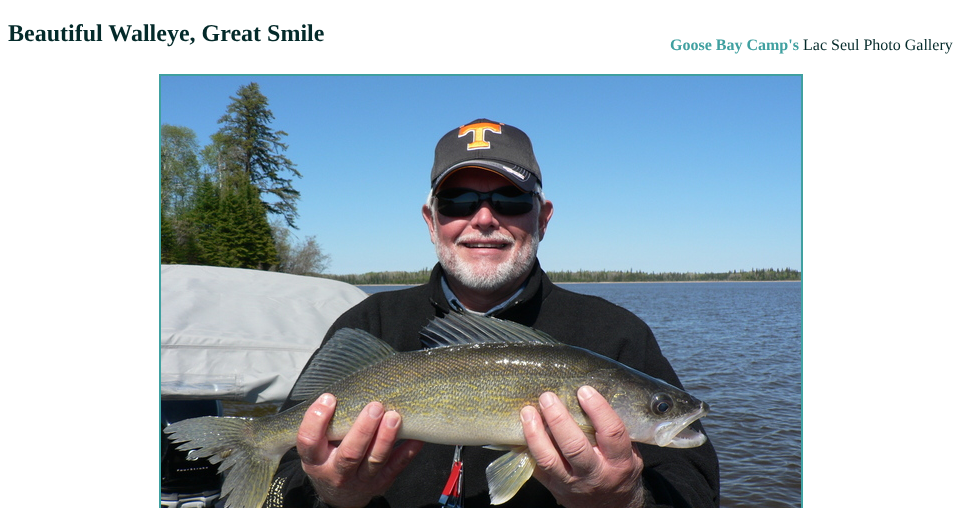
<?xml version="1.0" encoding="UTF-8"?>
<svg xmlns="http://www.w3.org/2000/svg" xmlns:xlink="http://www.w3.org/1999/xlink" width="961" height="508">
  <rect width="100%" height="100%" fill="#ffffff" />
  <rect x="160" y="75" width="642" height="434" fill="none" stroke="#40a0a0" stroke-width="2" />
  <image x="161" y="76" width="640" height="432" xlink:href="image1.png" />
  <text x="8" y="41" style="font-family: Liberation Serif; font-size: 24px; font-weight: bold; fill: #042a2a">Beautiful Walleye, Great Smile</text>
  <text x="670" y="50" style="font-family: Liberation Serif; font-size: 16px; font-weight: bold; fill: #40a0a0">Goose Bay Camp's</text>
  <text x="803" y="50" style="font-family: Liberation Serif; font-size: 16px; fill: #042a2a">Lac Seul Photo Gallery</text>
</svg>
